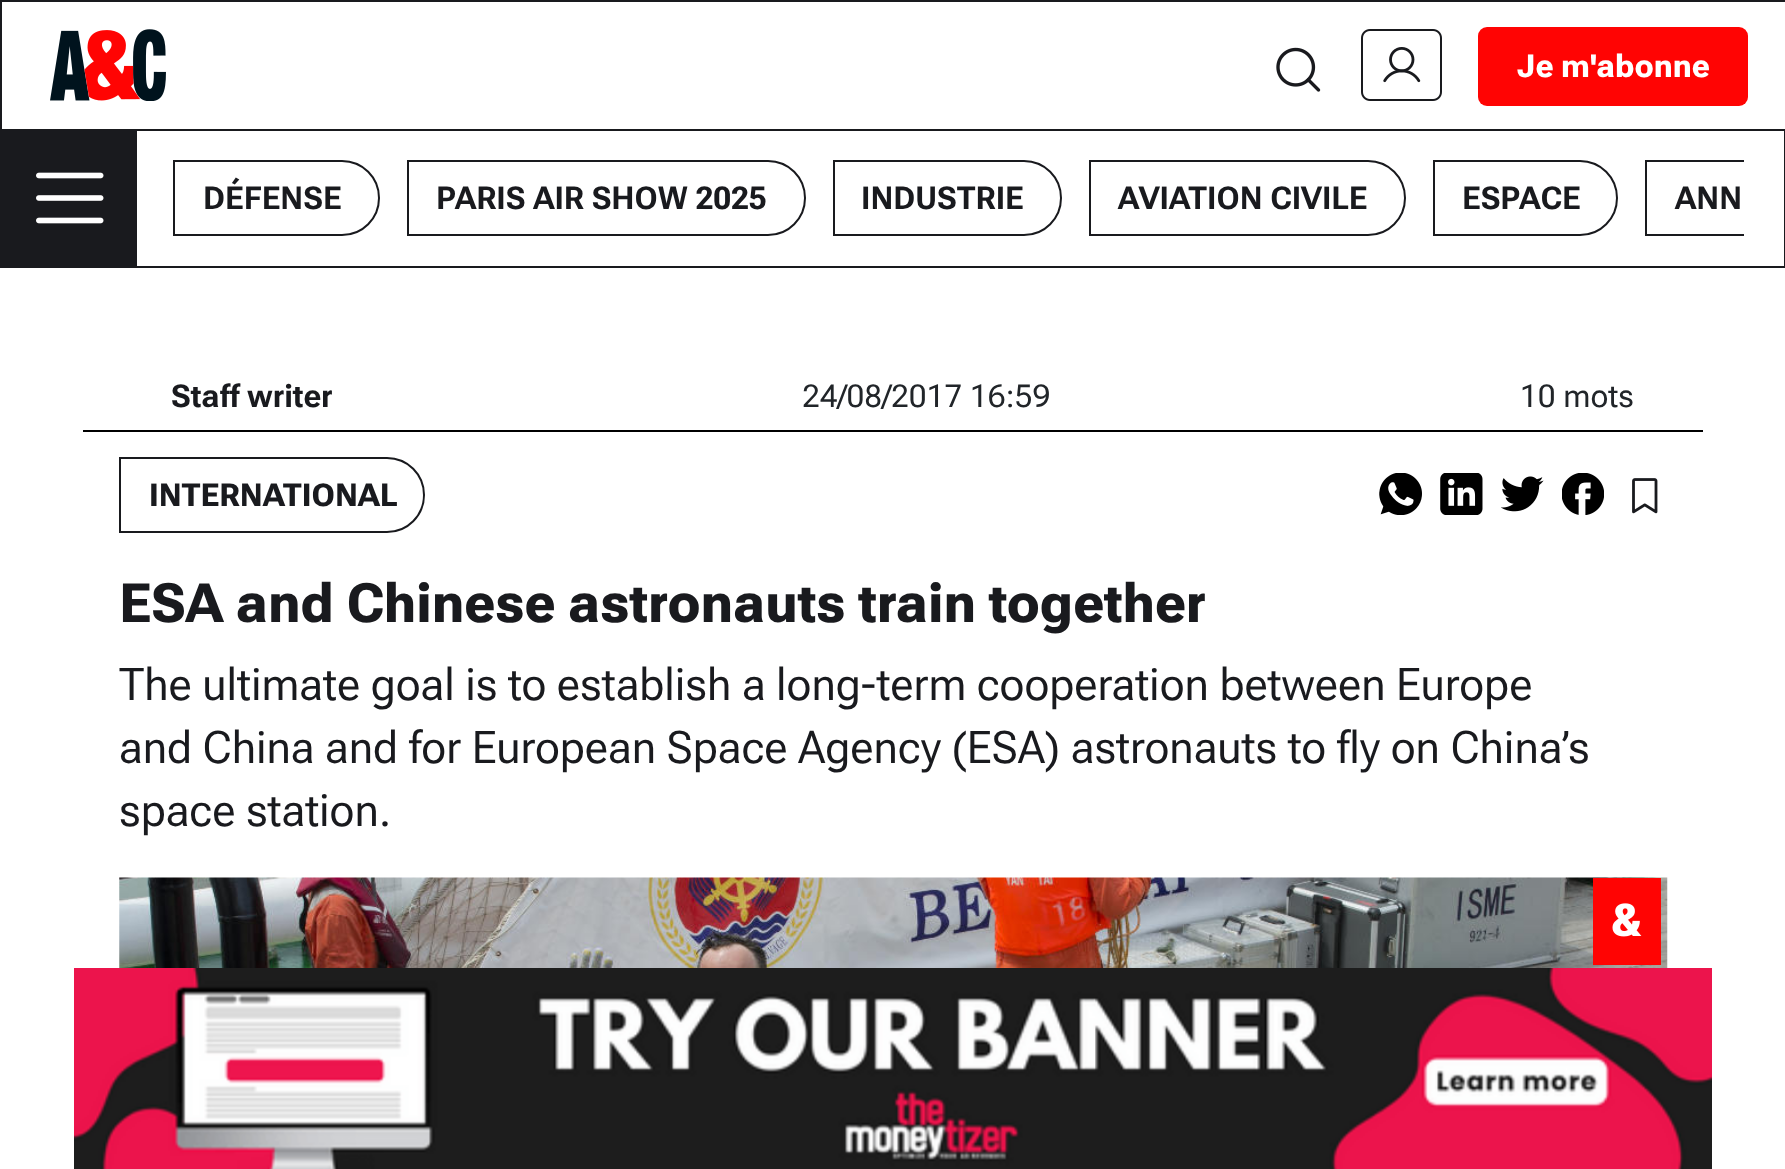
<?xml version="1.0" encoding="UTF-8"?>
<svg xmlns="http://www.w3.org/2000/svg" xmlns:xlink="http://www.w3.org/1999/xlink" width="1785" height="1169">
  <defs>
    <clipPath id="clip1"><rect x="137" y="160" width="1607" height="76" /></clipPath>
  </defs>
  <rect width="100%" height="100%" fill="#ffffff" />
  <rect x="1" y="1" width="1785" height="129" fill="none" stroke="#191a1e" stroke-width="2" />
  <image x="50" y="29" width="116" height="72" xlink:href="image1.png" />
  <image x="1276" y="47" width="45" height="45" xlink:href="image2.png" />
  <image x="1361" y="29" width="81" height="72" xlink:href="image3.png" />
  <rect x="1478" y="27" width="270" height="79" rx="9" fill="#ff0403" />
  <rect x="1784" y="131" width="1" height="137" fill="#191a1e" />
  <rect y="266" width="1785" height="2" fill="#191a1e" />
  <rect y="131" width="2" height="137" fill="#191a1e" />
  <rect x="2" y="131" width="135" height="135" fill="#191a1e" />
  <image x="36" y="172" width="68" height="52" xlink:href="image4.png" />
  <path d="M 174 161 h 168 c 20.5 0 37 16.5 37 37 c 0 20.5 -16.5 37 -37 37 h -168 z" fill="none" stroke="#191a1e" stroke-width="2" />
  <path d="M 408 161 h 360 c 20.5 0 37 16.5 37 37 c 0 20.5 -16.5 37 -37 37 h -360 z" fill="none" stroke="#191a1e" stroke-width="2" />
  <path d="M 834 161 h 190 c 20.5 0 37 16.5 37 37 c 0 20.5 -16.5 37 -37 37 h -190 z" fill="none" stroke="#191a1e" stroke-width="2" />
  <path d="M 1090 161 h 278 c 20.5 0 37 16.5 37 37 c 0 20.5 -16.5 37 -37 37 h -278 z" fill="none" stroke="#191a1e" stroke-width="2" />
  <path d="M 1434 161 h 146 c 20.5 0 37 16.5 37 37 c 0 20.5 -16.5 37 -37 37 h -146 z" fill="none" stroke="#191a1e" stroke-width="2" />
  <g clip-path="url(#clip1)">
    <path d="M 1646 161 h 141 c 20.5 0 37 16.5 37 37 c 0 20.5 -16.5 37 -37 37 h -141 z" fill="none" stroke="#191a1e" stroke-width="2" />
  </g>
  <rect x="83" y="430" width="1620" height="2" fill="#000000" />
  <path d="M 120 458 h 267 c 20.5 0 37 16.5 37 37 c 0 20.5 -16.5 37 -37 37 h -267 z" fill="none" stroke="#191a1e" stroke-width="2" />
  <image x="1379" y="473" width="43" height="42" xlink:href="image5.png" />
  <image x="1440" y="473" width="43" height="42" xlink:href="image6.png" />
  <image x="1501" y="476" width="43" height="36" xlink:href="image7.png" />
  <image x="1562" y="473" width="42" height="42" xlink:href="image8.png" />
  <image x="1632" y="478" width="26" height="36" xlink:href="image9.png" />
  <image x="119" y="877" width="1549" height="91" xlink:href="image10.png" />
  <image x="1593" y="878" width="68" height="87" xlink:href="image11.png" />
  <image x="74" y="968" width="1638" height="201" xlink:href="image12.png" />
  <text x="1517" y="77" style="font-family: Roboto Flex; font-size: 31.5px; font-weight: 800; fill: #ffffff">Je m'abonne</text>
  <text x="203" y="209" style="font-family: Roboto Flex; font-size: 31.5px; font-weight: bold; fill: #191a1e">DÉFENSE</text>
  <text x="436" y="209" style="font-family: Roboto Flex; font-size: 31.5px; font-weight: bold; fill: #191a1e">PARIS AIR SHOW 2025</text>
  <text x="861" y="209" style="font-family: Roboto Flex; font-size: 31.5px; font-weight: bold; fill: #191a1e">INDUSTRIE</text>
  <text x="1118" y="209" style="font-family: Roboto Flex; font-size: 31.5px; font-weight: bold; fill: #191a1e">AVIATION CIVILE</text>
  <text x="1462" y="209" style="font-family: Roboto Flex; font-size: 31.5px; font-weight: bold; fill: #191a1e">ESPACE</text>
  <text x="1675" y="209" style="font-family: Roboto Flex; font-size: 31.5px; font-weight: bold; fill: #191a1e">ANN</text>
  <text x="171" y="407" style="font-family: Roboto Flex; font-size: 31.5px; font-weight: bold; fill: #191a1e">Staff writer</text>
  <text x="802" y="407" style="font-family: Roboto Flex; font-size: 31.5px; fill: #212529">24/08/2017 16:59</text>
  <text x="1520" y="407" style="font-family: Roboto Flex; font-size: 31.5px; fill: #212529">10 mots</text>
  <text x="149" y="506" style="font-family: Roboto Flex; font-size: 31.5px; font-weight: 800; fill: #191a1e">INTERNATIONAL</text>
  <text x="119" y="622" word-spacing="-0.5" style="font-family: Roboto Flex; font-size: 54px; font-weight: 800; fill: #191a1e">ESA and Chinese astronauts train together</text>
  <text x="119" y="700" style="font-family: 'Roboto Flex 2'; font-size: 45px; fill: #191a1e">The ultimate goal is to establish a long-term cooperation between Europe</text>
  <text x="119" y="763" style="font-family: 'Roboto Flex 2'; font-size: 45px; fill: #191a1e">and China and for European Space Agency (ESA) astronauts to fly on China’s</text>
  <text x="119" y="826" style="font-family: 'Roboto Flex 2'; font-size: 45px; fill: #191a1e">space station.</text>
</svg>
